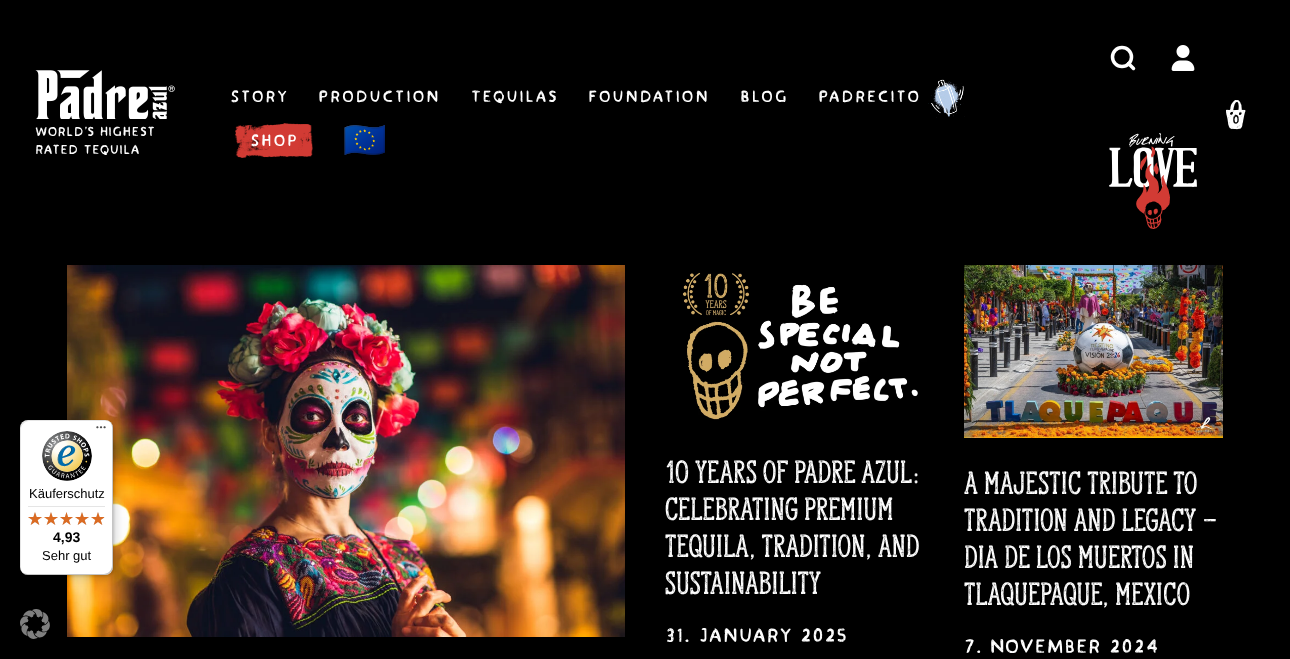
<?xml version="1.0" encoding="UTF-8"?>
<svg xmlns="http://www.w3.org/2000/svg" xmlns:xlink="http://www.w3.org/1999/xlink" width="1290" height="659">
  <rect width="100%" height="100%" fill="#000000" />
  <image x="928" y="79" width="37" height="39" xlink:href="image1.png" />
  <image x="235" y="123" width="78" height="35" xlink:href="image2.png" />
  <circle cx="1122" cy="57" r="9.5" fill="none" stroke="#ffffff" stroke-width="3.5" />
  <path d="M 1133.5 68.5 l -5 -5" fill="none" stroke="#ffffff" stroke-width="3.5" stroke-linecap="round" stroke-linejoin="round" />
  <image x="1171" y="45" width="24" height="26" xlink:href="image3.png" />
  <image x="1109" y="133" width="88" height="96" xlink:href="image4.png" />
  <image x="1226" y="100" width="20" height="30" xlink:href="image5.png" />
  <image x="35" y="70" width="140" height="49" xlink:href="image6.png" />
  <image x="67" y="265" width="558" height="372" xlink:href="image7.png" />
  <image x="682" y="272" width="236" height="148" xlink:href="image8.png" />
  <image x="964" y="265" width="259" height="173" xlink:href="image9.png" />
  <rect x="23" y="423" width="93" height="155" rx="8" fill="#000000" fill-opacity="0.15" filter="blur(4px)" />
  <rect x="21" y="421" width="93" height="155" rx="8" fill="#000000" fill-opacity="0.15" filter="blur(1px)" />
  <rect x="20" y="420" width="93" height="155" rx="8" fill="#ffffff" />
  <path d="M 29 421 h 77 c 2 0 4 1 6 3 c -2 -2 -4 -4 -7 -4 h -77 c -4 0 -8 4 -8 8 v 139 c 0 3 2 5 4 7 c -2 -2 -3 -4 -3 -6 v -139 c 0 -4 4 -8 8 -8 z" fill="#000000" fill-opacity="0.1" />
  <path d="M 21 571 c 2 2 4 4 7 4 h 77 c 4 0 8 -4 8 -8 v -139 c 0 -3 -2 -5 -4 -7 c 2 2 3 4 3 6 v 139 c 0 4 -4 8 -8 8 h -77 c -2 0 -4 -1 -6 -3 z" fill="#000000" fill-opacity="0.2" />
  <path d="M 22 572 c 1 2 4 3 6 3 h 77 c 4 0 8 -4 8 -8 v -139 c 0 -2 -1 -5 -3 -6 c 1 1 2 3 2 5 v 139 c 0 5 -3 8 -8 8 h -77 c -2 0 -4 -1 -5 -2 z" fill="#323232" fill-opacity="0.2" />
  <path d="M 112 428 c 0 -5 -3 -8 -8 -8 h 1 c 4 0 8 4 8 8 v 139 c 0 4 -4 8 -8 8 h -77 c -4 0 -8 -4 -8 -8 v -1 c 0 5 3 8 8 8 h 76 c 5 0 8 -3 8 -8 z" fill="#ffffff" fill-opacity="0.3" />
  <image x="96" y="426" width="10" height="3" xlink:href="image10.png" />
  <image x="42" y="431" width="50" height="50" xlink:href="image11.png" />
  <rect x="28" y="506" width="77" height="1" fill="#e5e5e5" />
  <image x="28" y="512" width="14" height="13" xlink:href="image12.png" />
  <image x="44" y="512" width="14" height="13" xlink:href="image12.png" />
  <image x="60" y="512" width="13" height="13" xlink:href="image13.png" />
  <image x="75" y="512" width="14" height="13" xlink:href="image12.png" />
  <image x="91" y="512" width="14" height="13" xlink:href="image12.png" />
  <image x="28" y="512" width="14" height="13" xlink:href="image14.png" />
  <image x="44" y="512" width="14" height="13" xlink:href="image14.png" />
  <image x="60" y="512" width="13" height="13" xlink:href="image15.png" />
  <image x="75" y="512" width="14" height="13" xlink:href="image14.png" />
  <image x="91" y="512" width="13" height="13" xlink:href="image16.png" />
  <image x="20" y="609" width="30" height="30" xlink:href="image17.png" />
  <text x="230" y="102" style="font-family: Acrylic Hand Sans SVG; font-size: 15px; letter-spacing: 1px; fill: #ffffff">Story</text>
  <text x="318" y="102" style="font-family: Acrylic Hand Sans SVG; font-size: 15px; letter-spacing: 1px; fill: #ffffff">Production</text>
  <text x="471" y="102" style="font-family: Acrylic Hand Sans SVG; font-size: 15px; letter-spacing: 1px; fill: #ffffff">Tequilas</text>
  <text x="588" y="102" style="font-family: Acrylic Hand Sans SVG; font-size: 15px; letter-spacing: 1px; fill: #ffffff">Foundation</text>
  <text x="740" y="102" style="font-family: Acrylic Hand Sans SVG; font-size: 15px; letter-spacing: 1px; fill: #ffffff">Blog</text>
  <text x="818" y="102" style="font-family: Acrylic Hand Sans SVG; font-size: 15px; letter-spacing: 1px; fill: #ffffff">Padrecito</text>
  <text x="250" y="146" style="font-family: Acrylic Hand Sans SVG; font-size: 15px; letter-spacing: 1px; fill: #ffffff">Shop</text>
  <text x="343" y="152" style="font-family: Noto Color Emoji; font-size: 35px; font-weight: bold; letter-spacing: 2px; fill: #ffffff">🇪🇺</text>
  <text x="1232" y="124" style="font-family: Acrylic Hand Sans SVG; font-size: 12px; fill: #000000">0</text>
  <text x="35" y="136" style="font-family: Acrylic Hand Sans SVG; font-size: 12px; fill: #ffffff">World's Highest</text>
  <text x="35" y="154" style="font-family: Acrylic Hand Sans SVG; font-size: 12px; fill: #ffffff">Rated Tequila</text>
  <text x="665" y="483" style="font-family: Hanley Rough; font-size: 30px; fill: #ffffff">10 YEARS OF PADRE AZUL:</text>
  <text x="665" y="520" style="font-family: Hanley Rough; font-size: 30px; fill: #ffffff">CELEBRATING PREMIUM</text>
  <text x="665" y="557" style="font-family: Hanley Rough; font-size: 30px; fill: #ffffff">TEQUILA, TRADITION, AND</text>
  <text x="665" y="594" style="font-family: Hanley Rough; font-size: 30px; fill: #ffffff">SUSTAINABILITY</text>
  <text x="665" y="642" style="font-family: Acrylic Hand Sans SVG; font-size: 18px; fill: #ffffff">31. January 2025</text>
  <text x="964" y="494" style="font-family: Hanley Rough; font-size: 30px; fill: #ffffff">A MAJESTIC TRIBUTE TO</text>
  <text x="964" y="531" style="font-family: Hanley Rough; font-size: 30px; fill: #ffffff">TRADITION AND LEGACY –</text>
  <text x="964" y="568" style="font-family: Hanley Rough; font-size: 30px; fill: #ffffff">DIA DE LOS MUERTOS IN</text>
  <text x="964" y="605" style="font-family: Hanley Rough; font-size: 30px; fill: #ffffff">TLAQUEPAQUE, MEXICO</text>
  <text x="964" y="653" style="font-family: Acrylic Hand Sans SVG; font-size: 18px; fill: #ffffff">7. November 2024</text>
  <text x="29" y="498" style="font-family: Liberation Sans; font-size: 13px; fill: #000000">Käuferschutz</text>
  <text x="53" y="542" style="font-family: Liberation Sans; font-size: 14px; font-weight: bold; fill: #000000">4,93</text>
  <text x="42" y="560" style="font-family: Liberation Sans; font-size: 13px; fill: #000000">Sehr gut</text>
</svg>
